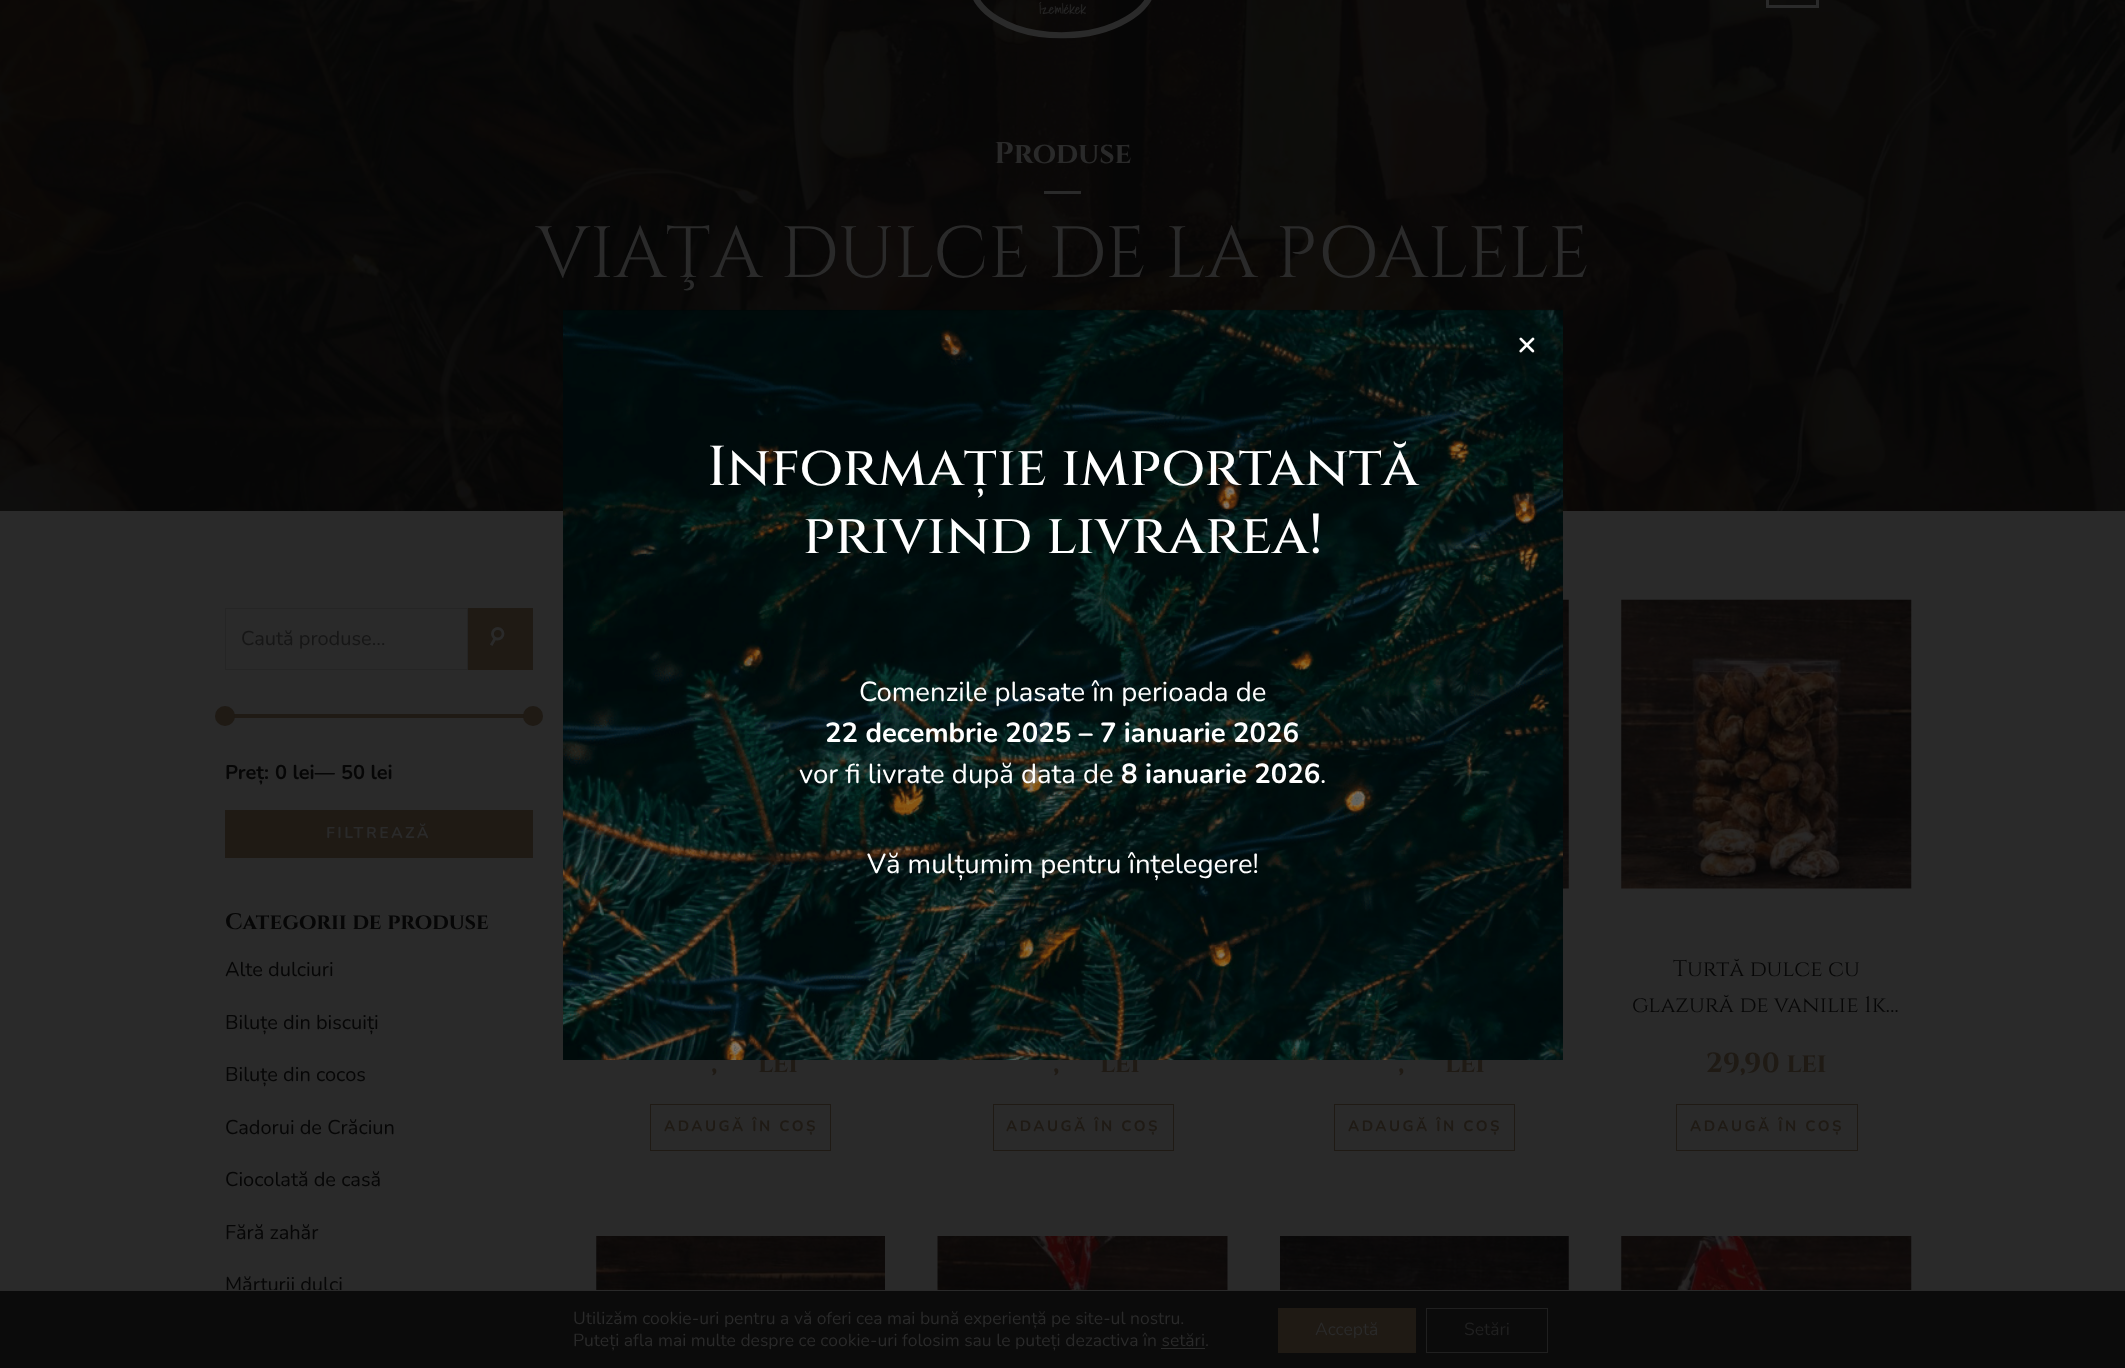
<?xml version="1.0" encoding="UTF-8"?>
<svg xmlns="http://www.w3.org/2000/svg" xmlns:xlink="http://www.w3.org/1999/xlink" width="2125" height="1368">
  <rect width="100%" height="100%" fill="#2a2a2a" />
  <image x="0" y="0" width="2125" height="511" xlink:href="image2.png" />
  <image x="973" y="0" width="179" height="39" xlink:href="image1.png" />
  <rect x="1767.5" y="-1.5" width="50" height="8" fill="none" stroke="#2a2a2a" stroke-width="3" />
  <rect x="1044" y="191" width="37" height="3" fill="#2a2a2a" />
  <rect x="225.5" y="608.5" width="242" height="61" fill="none" stroke="#252525" />
  <rect x="468" y="608" width="65" height="62" fill="#1f1a14" />
  <rect x="234" y="714" width="290" height="4" fill="#1f1a14" />
  <circle cx="225" cy="716" r="10" fill="#1f1a14" />
  <circle cx="533" cy="716" r="10" fill="#1f1a14" />
  <rect x="225" y="810" width="308" height="48" fill="#1f1a14" />
  <rect x="650.5" y="1104.5" width="180" height="46" fill="none" stroke="#1f1a14" />
  <rect x="993.5" y="1104.5" width="180" height="46" fill="none" stroke="#1f1a14" />
  <image x="1563" y="599" width="6" height="290" xlink:href="image3.png" />
  <rect x="1334.5" y="1104.5" width="180" height="46" fill="none" stroke="#1f1a14" />
  <image x="1621" y="599" width="291" height="290" xlink:href="image4.png" />
  <rect x="1676.5" y="1104.5" width="181" height="46" fill="none" stroke="#1f1a14" />
  <image x="596" y="1236" width="289" height="54" xlink:href="image5.png" />
  <image x="937" y="1236" width="291" height="54" xlink:href="image6.png" />
  <image x="1280" y="1236" width="289" height="54" xlink:href="image7.png" />
  <image x="1621" y="1236" width="291" height="54" xlink:href="image8.png" />
  <text x="994" y="163" style="font-family: Cinzel; font-size: 30px; font-weight: bold; fill: #2a2a2a">Produse</text>
  <text x="536" y="277" style="font-family: Cinzel; font-size: 72.5px; fill: #2a2a2a">VIAŢA DULCE DE LA POALELE</text>
  <text x="241" y="645" style="font-family: Nunito; font-size: 20px; fill: #161616">Caută produse…</text>
  <text x="506" y="627" transform="rotate(180 506 627)" style="font-family: DejaVu Sans; font-size: 25px; font-weight: bold; letter-spacing: 2.5px; fill: #2a2a2a">☌</text>
  <text x="225" y="779" style="font-family: Nunito; font-size: 20px; font-weight: bold; fill: #060606">Preț:</text>
  <text x="275" y="779" style="font-family: Nunito; font-size: 20px; font-weight: bold; fill: #060606">0 lei—</text>
  <text x="341" y="779" style="font-family: Nunito; font-size: 20px; font-weight: bold; fill: #060606">50 lei</text>
  <text x="326" y="838" style="font-family: Nunito; font-size: 15.75px; font-weight: bold; letter-spacing: 2.5px; fill: #2a2a2a">FILTREAZĂ</text>
  <text x="225" y="929" style="font-family: Cinzel; font-size: 22.5px; font-weight: bold; fill: #060606">Categorii de produse</text>
  <text x="225" y="976" style="font-family: Nunito; font-size: 20px; fill: #060606">Alte dulciuri</text>
  <text x="225" y="1029" style="font-family: Nunito; font-size: 20px; fill: #060606">Biluțe din biscuiți</text>
  <text x="225" y="1081" style="font-family: Nunito; font-size: 20px; fill: #060606">Biluțe din cocos</text>
  <text x="225" y="1134" style="font-family: Nunito; font-size: 20px; fill: #060606">Cadorui de Crăciun</text>
  <text x="225" y="1186" style="font-family: Nunito; font-size: 20px; fill: #060606">Ciocolată de casă</text>
  <text x="225" y="1239" style="font-family: Nunito; font-size: 20px; fill: #060606">Fără zahăr</text>
  <text x="225" y="1291" style="font-family: Nunito; font-size: 20px; fill: #060606">Mărturii dulci</text>
  <text x="711" y="1072" style="font-family: Cinzel; font-size: 27.5px; font-weight: bold; fill: #1f1a14">,</text>
  <text x="758" y="1072" style="font-family: Cinzel; font-size: 27.5px; font-weight: bold; fill: #1f1a14">lei</text>
  <text x="664" y="1131" style="font-family: Nunito; font-size: 15px; font-weight: bold; letter-spacing: 2.5px; fill: #1f1a14">ADAUGĂ ÎN COȘ</text>
  <text x="1053" y="1072" style="font-family: Cinzel; font-size: 27.5px; font-weight: bold; fill: #1f1a14">,</text>
  <text x="1100" y="1072" style="font-family: Cinzel; font-size: 27.5px; font-weight: bold; fill: #1f1a14">lei</text>
  <text x="1006" y="1131" style="font-family: Nunito; font-size: 15px; font-weight: bold; letter-spacing: 2.5px; fill: #1f1a14">ADAUGĂ ÎN COȘ</text>
  <text x="1398" y="1072" style="font-family: Cinzel; font-size: 27.5px; font-weight: bold; fill: #1f1a14">,</text>
  <text x="1445" y="1072" style="font-family: Cinzel; font-size: 27.5px; font-weight: bold; fill: #1f1a14">lei</text>
  <text x="1348" y="1131" style="font-family: Nunito; font-size: 15px; font-weight: bold; letter-spacing: 2.5px; fill: #1f1a14">ADAUGĂ ÎN COȘ</text>
  <text x="1673" y="976" style="font-family: Cinzel; font-size: 22.5px; fill: #060606">Turtă dulce cu</text>
  <text x="1632" y="1012" style="font-family: Cinzel; font-size: 22.5px; fill: #060606">glazură de vanilie 1k…</text>
  <text x="1706" y="1072" style="font-family: Cinzel; font-size: 27.5px; font-weight: bold; fill: #1f1a14">29,90 lei</text>
  <text x="1690" y="1131" style="font-family: Nunito; font-size: 15px; font-weight: bold; letter-spacing: 2.5px; fill: #1f1a14">ADAUGĂ ÎN COȘ</text>
  <image x="563" y="309" width="1000" height="751" xlink:href="image9.png" />
  <rect x="563" y="310" width="1000" height="750" fill="#000000" fill-opacity="0.45" />
  <image x="1519" y="337" width="16" height="16" xlink:href="image10.png" />
  <text x="707" y="485" style="font-family: Cinzel; font-size: 56.25px; font-weight: 500; fill: #ffffff">Informație importantă</text>
  <text x="803" y="553" style="font-family: Cinzel; font-size: 56.25px; font-weight: 500; fill: #ffffff">privind livrarea!</text>
  <text x="859" y="701" style="font-family: Nunito; font-size: 27.5px; fill: #ffffff">Comenzile plasate în perioada de</text>
  <text x="825" y="742" style="font-family: Nunito; font-size: 27.5px; font-weight: bold; fill: #ffffff">22 decembrie 2025 – 7 ianuarie 2026</text>
  <text x="799" y="783" style="font-family: Nunito; font-size: 27.5px; fill: #ffffff">vor fi livrate după data de</text>
  <text x="1121" y="783" style="font-family: Nunito; font-size: 27.5px; font-weight: bold; fill: #ffffff">8 ianuarie 2026</text>
  <text x="1320" y="783" style="font-family: Nunito; font-size: 27.5px; fill: #ffffff">.</text>
  <text x="867" y="873" style="font-family: Nunito; font-size: 27.5px; fill: #ffffff">Vă mulțumim pentru înțelegere!</text>
  <rect y="1291" width="2125" height="77" fill="#0b0b0b" />
  <rect x="226" y="1290" width="116" height="1" fill="#2a2a2a" />
  <text x="573" y="1324" style="font-family: Nunito; font-size: 17.5px; fill: #2a2a2a">Utilizăm cookie-uri pentru a vă oferi cea mai bună experiență pe site-ul nostru.</text>
  <text x="573" y="1346" style="font-family: Nunito; font-size: 17.5px; fill: #2a2a2a">Puteți afla mai multe despre ce cookie-uri folosim sau le puteți dezactiva în setări.</text>
  <rect x="1161" y="1348" width="44" height="1" fill="#2a2a2a" />
  <rect x="1278" y="1308" width="138" height="45" fill="#1f1a14" />
  <text x="1315" y="1335" style="font-family: Nunito; font-size: 17.5px; fill: #2a2a2a">Acceptă</text>
  <rect x="1426.5" y="1308.5" width="121" height="44" fill="none" stroke="#202020" />
  <text x="1464" y="1335" style="font-family: Nunito; font-size: 17.5px; fill: #202020">Setări</text>
</svg>
